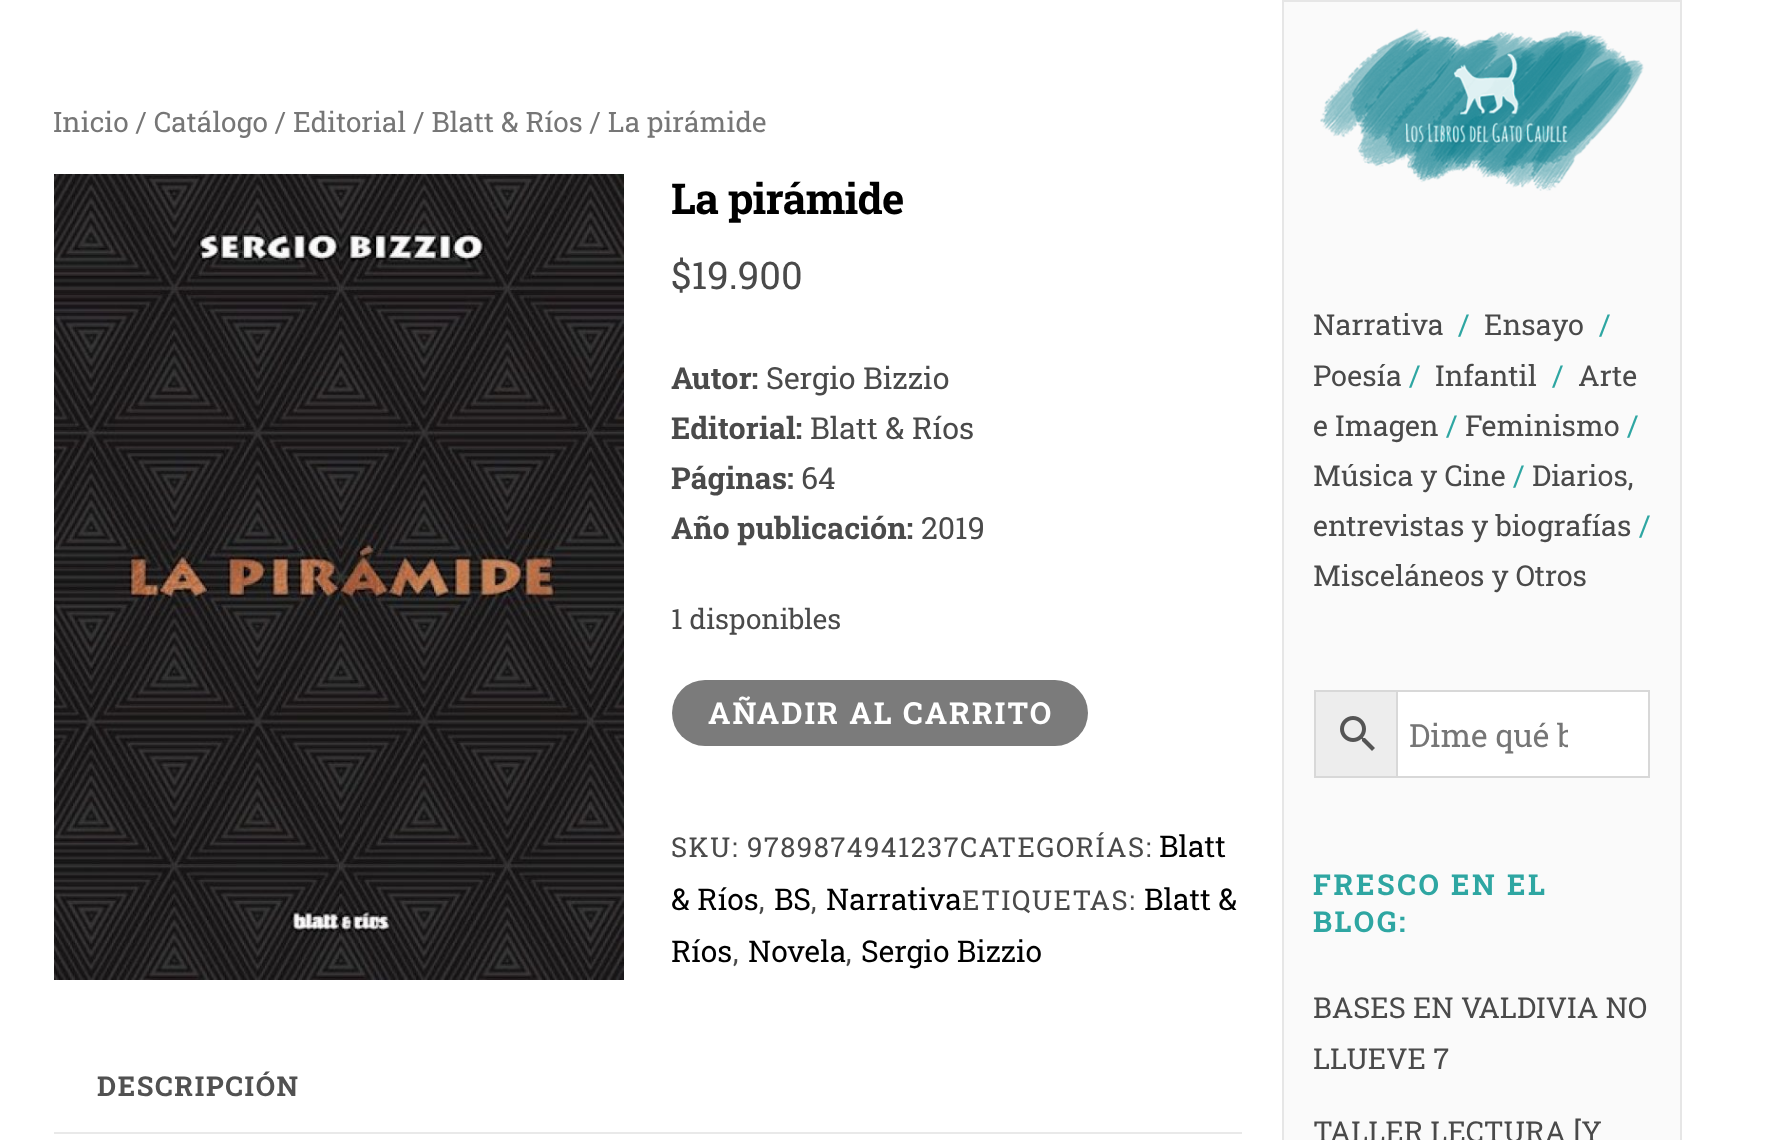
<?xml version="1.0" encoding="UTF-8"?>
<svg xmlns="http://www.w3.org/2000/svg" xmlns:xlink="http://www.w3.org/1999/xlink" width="1779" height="1140">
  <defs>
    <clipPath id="clip1"><rect x="1410" y="712" width="158" height="42" /></clipPath>
  </defs>
  <rect width="100%" height="100%" fill="#ffffff" />
  <image x="54" y="174" width="570" height="806" xlink:href="image1.png" />
  <rect x="672" y="680" width="416" height="66" rx="33" fill="#7b7b7b" />
  <rect x="54" y="1132" width="1188" height="2" fill="#e9e9e9" />
  <rect x="1283" y="1" width="398" height="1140" fill="#fafafa" stroke="#e6e6e6" stroke-width="2" />
  <image x="1320" y="28" width="324" height="163" xlink:href="image2.png" />
  <rect x="1315" y="691" width="82" height="86" fill="#ededed" stroke="#d8d8d8" stroke-width="2" />
  <image x="1340" y="716" width="35" height="35" xlink:href="image3.png" />
  <rect x="1397" y="691" width="252" height="86" fill="#ffffff" stroke="#d8d8d8" stroke-width="2" />
  <text x="53" y="132" style="font-family: Roboto Slab; font-size: 28px; fill: #767676">Inicio / Catálogo / Editorial / Blatt &amp; Ríos / La pirámide</text>
  <text x="671" y="214" style="font-family: Roboto Slab; font-size: 42.5px; font-weight: bold; letter-spacing: -0.8px; fill: #000000">La pirámide</text>
  <text x="671" y="289" style="font-family: Roboto Slab; font-size: 38px; fill: #4a4a4a">$19.900</text>
  <text x="671" y="389" style="font-family: Roboto Slab; font-size: 30.4px; font-weight: bold; fill: #4a4a4a">Autor:</text>
  <text x="766" y="389" style="font-family: Roboto Slab; font-size: 30.4px; fill: #4a4a4a">Sergio Bizzio</text>
  <text x="671" y="439" style="font-family: Roboto Slab; font-size: 30.4px; font-weight: bold; fill: #4a4a4a">Editorial:</text>
  <text x="810" y="439" style="font-family: Roboto Slab; font-size: 30.4px; fill: #4a4a4a">Blatt &amp; Ríos</text>
  <text x="671" y="489" style="font-family: Roboto Slab; font-size: 30.4px; font-weight: bold; fill: #4a4a4a">Páginas:</text>
  <text x="801" y="489" style="font-family: Roboto Slab; font-size: 30.4px; fill: #4a4a4a">64</text>
  <text x="671" y="539" style="font-family: Roboto Slab; font-size: 30.4px; font-weight: bold; fill: #4a4a4a">Año publicación:</text>
  <text x="921" y="539" style="font-family: Roboto Slab; font-size: 30.4px; fill: #4a4a4a">2019</text>
  <text x="671" y="629" style="font-family: Roboto Slab; font-size: 28px; fill: #4a4a4a">1 disponibles</text>
  <text x="708" y="724" style="font-family: Roboto Slab; font-size: 30.4px; font-weight: bold; letter-spacing: 2px; fill: #ffffff">AÑADIR AL CARRITO</text>
  <text x="671" y="857" style="font-family: Roboto Slab; font-size: 27.4px; letter-spacing: 1.4px; fill: #4a4a4a">SKU: 9789874941237CATEGORÍAS:</text>
  <text x="1159" y="857" style="font-family: Roboto Slab; font-size: 30px; fill: #000000">Blatt</text>
  <text x="671" y="910" style="font-family: Roboto Slab; font-size: 30px; fill: #000000">&amp; Ríos</text>
  <text x="759" y="910" style="font-family: Roboto Slab; font-size: 27.4px; letter-spacing: 1.4px; fill: #4a4a4a">,</text>
  <text x="774" y="910" style="font-family: Roboto Slab; font-size: 30px; fill: #000000">BS</text>
  <text x="811" y="910" style="font-family: Roboto Slab; font-size: 27.4px; letter-spacing: 1.4px; fill: #4a4a4a">,</text>
  <text x="826" y="910" style="font-family: Roboto Slab; font-size: 30px; fill: #000000">Narrativa</text>
  <text x="962" y="910" style="font-family: Roboto Slab; font-size: 27.4px; letter-spacing: 1.4px; fill: #4a4a4a">ETIQUETAS:</text>
  <text x="1144" y="910" style="font-family: Roboto Slab; font-size: 30px; fill: #000000">Blatt &amp;</text>
  <text x="671" y="962" style="font-family: Roboto Slab; font-size: 30px; fill: #000000">Ríos</text>
  <text x="733" y="962" style="font-family: Roboto Slab; font-size: 27.4px; letter-spacing: 1.4px; fill: #4a4a4a">,</text>
  <text x="748" y="962" style="font-family: Roboto Slab; font-size: 30px; fill: #000000">Novela</text>
  <text x="846" y="962" style="font-family: Roboto Slab; font-size: 27.4px; letter-spacing: 1.4px; fill: #4a4a4a">,</text>
  <text x="861" y="962" style="font-family: Roboto Slab; font-size: 30px; fill: #000000">Sergio Bizzio</text>
  <text x="97" y="1096" style="font-family: Roboto Slab; font-size: 27.4px; font-weight: bold; letter-spacing: 1.6px; fill: #515151">DESCRIPCIÓN</text>
  <text x="1313" y="335" style="font-family: Roboto Slab; font-size: 28.9px; fill: #4a4a4a">Narrativa</text>
  <text x="1458" y="335" style="font-family: Roboto Slab; font-size: 28.9px; fill: #2ea6a2">/</text>
  <text x="1484" y="335" style="font-family: Roboto Slab; font-size: 28.9px; fill: #4a4a4a">Ensayo</text>
  <text x="1599" y="335" style="font-family: Roboto Slab; font-size: 28.9px; fill: #2ea6a2">/</text>
  <text x="1313" y="386" style="font-family: Roboto Slab; font-size: 28.9px; fill: #4a4a4a">Poesía</text>
  <text x="1409" y="386" style="font-family: Roboto Slab; font-size: 28.9px; fill: #2ea6a2">/</text>
  <text x="1435" y="386" style="font-family: Roboto Slab; font-size: 28.9px; fill: #4a4a4a">Infantil</text>
  <text x="1552" y="386" style="font-family: Roboto Slab; font-size: 28.9px; fill: #2ea6a2">/</text>
  <text x="1578" y="386" style="font-family: Roboto Slab; font-size: 28.9px; fill: #4a4a4a">Arte</text>
  <text x="1313" y="436" style="font-family: Roboto Slab; font-size: 28.9px; fill: #4a4a4a">e Imagen</text>
  <text x="1446" y="436" style="font-family: Roboto Slab; font-size: 28.9px; fill: #2ea6a2">/</text>
  <text x="1465" y="436" style="font-family: Roboto Slab; font-size: 28.9px; fill: #4a4a4a">Feminismo</text>
  <text x="1627" y="436" style="font-family: Roboto Slab; font-size: 28.9px; fill: #2ea6a2">/</text>
  <text x="1313" y="486" style="font-family: Roboto Slab; font-size: 28.9px; fill: #4a4a4a">Música y Cine</text>
  <text x="1513" y="486" style="font-family: Roboto Slab; font-size: 28.9px; fill: #2ea6a2">/</text>
  <text x="1532" y="486" style="font-family: Roboto Slab; font-size: 28.9px; fill: #4a4a4a">Diarios,</text>
  <text x="1313" y="536" style="font-family: Roboto Slab; font-size: 28.9px; fill: #4a4a4a">entrevistas y biografías</text>
  <text x="1639" y="536" style="font-family: Roboto Slab; font-size: 28.9px; fill: #2ea6a2">/</text>
  <text x="1313" y="586" style="font-family: Roboto Slab; font-size: 28.9px; fill: #4a4a4a">Misceláneos y Otros</text>
  <g clip-path="url(#clip1)">
    <text x="1409" y="747" style="font-family: Roboto Slab; font-size: 32px; fill: #767676">Dime qué b</text>
  </g>
  <text x="1313" y="895" style="font-family: Roboto Slab; font-size: 28.9px; font-weight: bold; letter-spacing: 2.6px; fill: #2ea6a2">FRESCO EN EL</text>
  <text x="1313" y="932" style="font-family: Roboto Slab; font-size: 28.9px; font-weight: bold; letter-spacing: 2.6px; fill: #2ea6a2">BLOG:</text>
  <text x="1313" y="1018" style="font-family: Roboto Slab; font-size: 28.9px; fill: #4a4a4a">BASES EN VALDIVIA NO</text>
  <text x="1313" y="1069" style="font-family: Roboto Slab; font-size: 28.9px; fill: #4a4a4a">LLUEVE 7</text>
  <text x="1313" y="1142" style="font-family: Roboto Slab; font-size: 28.9px; fill: #4a4a4a">TALLER LECTURA [Y</text>
</svg>
